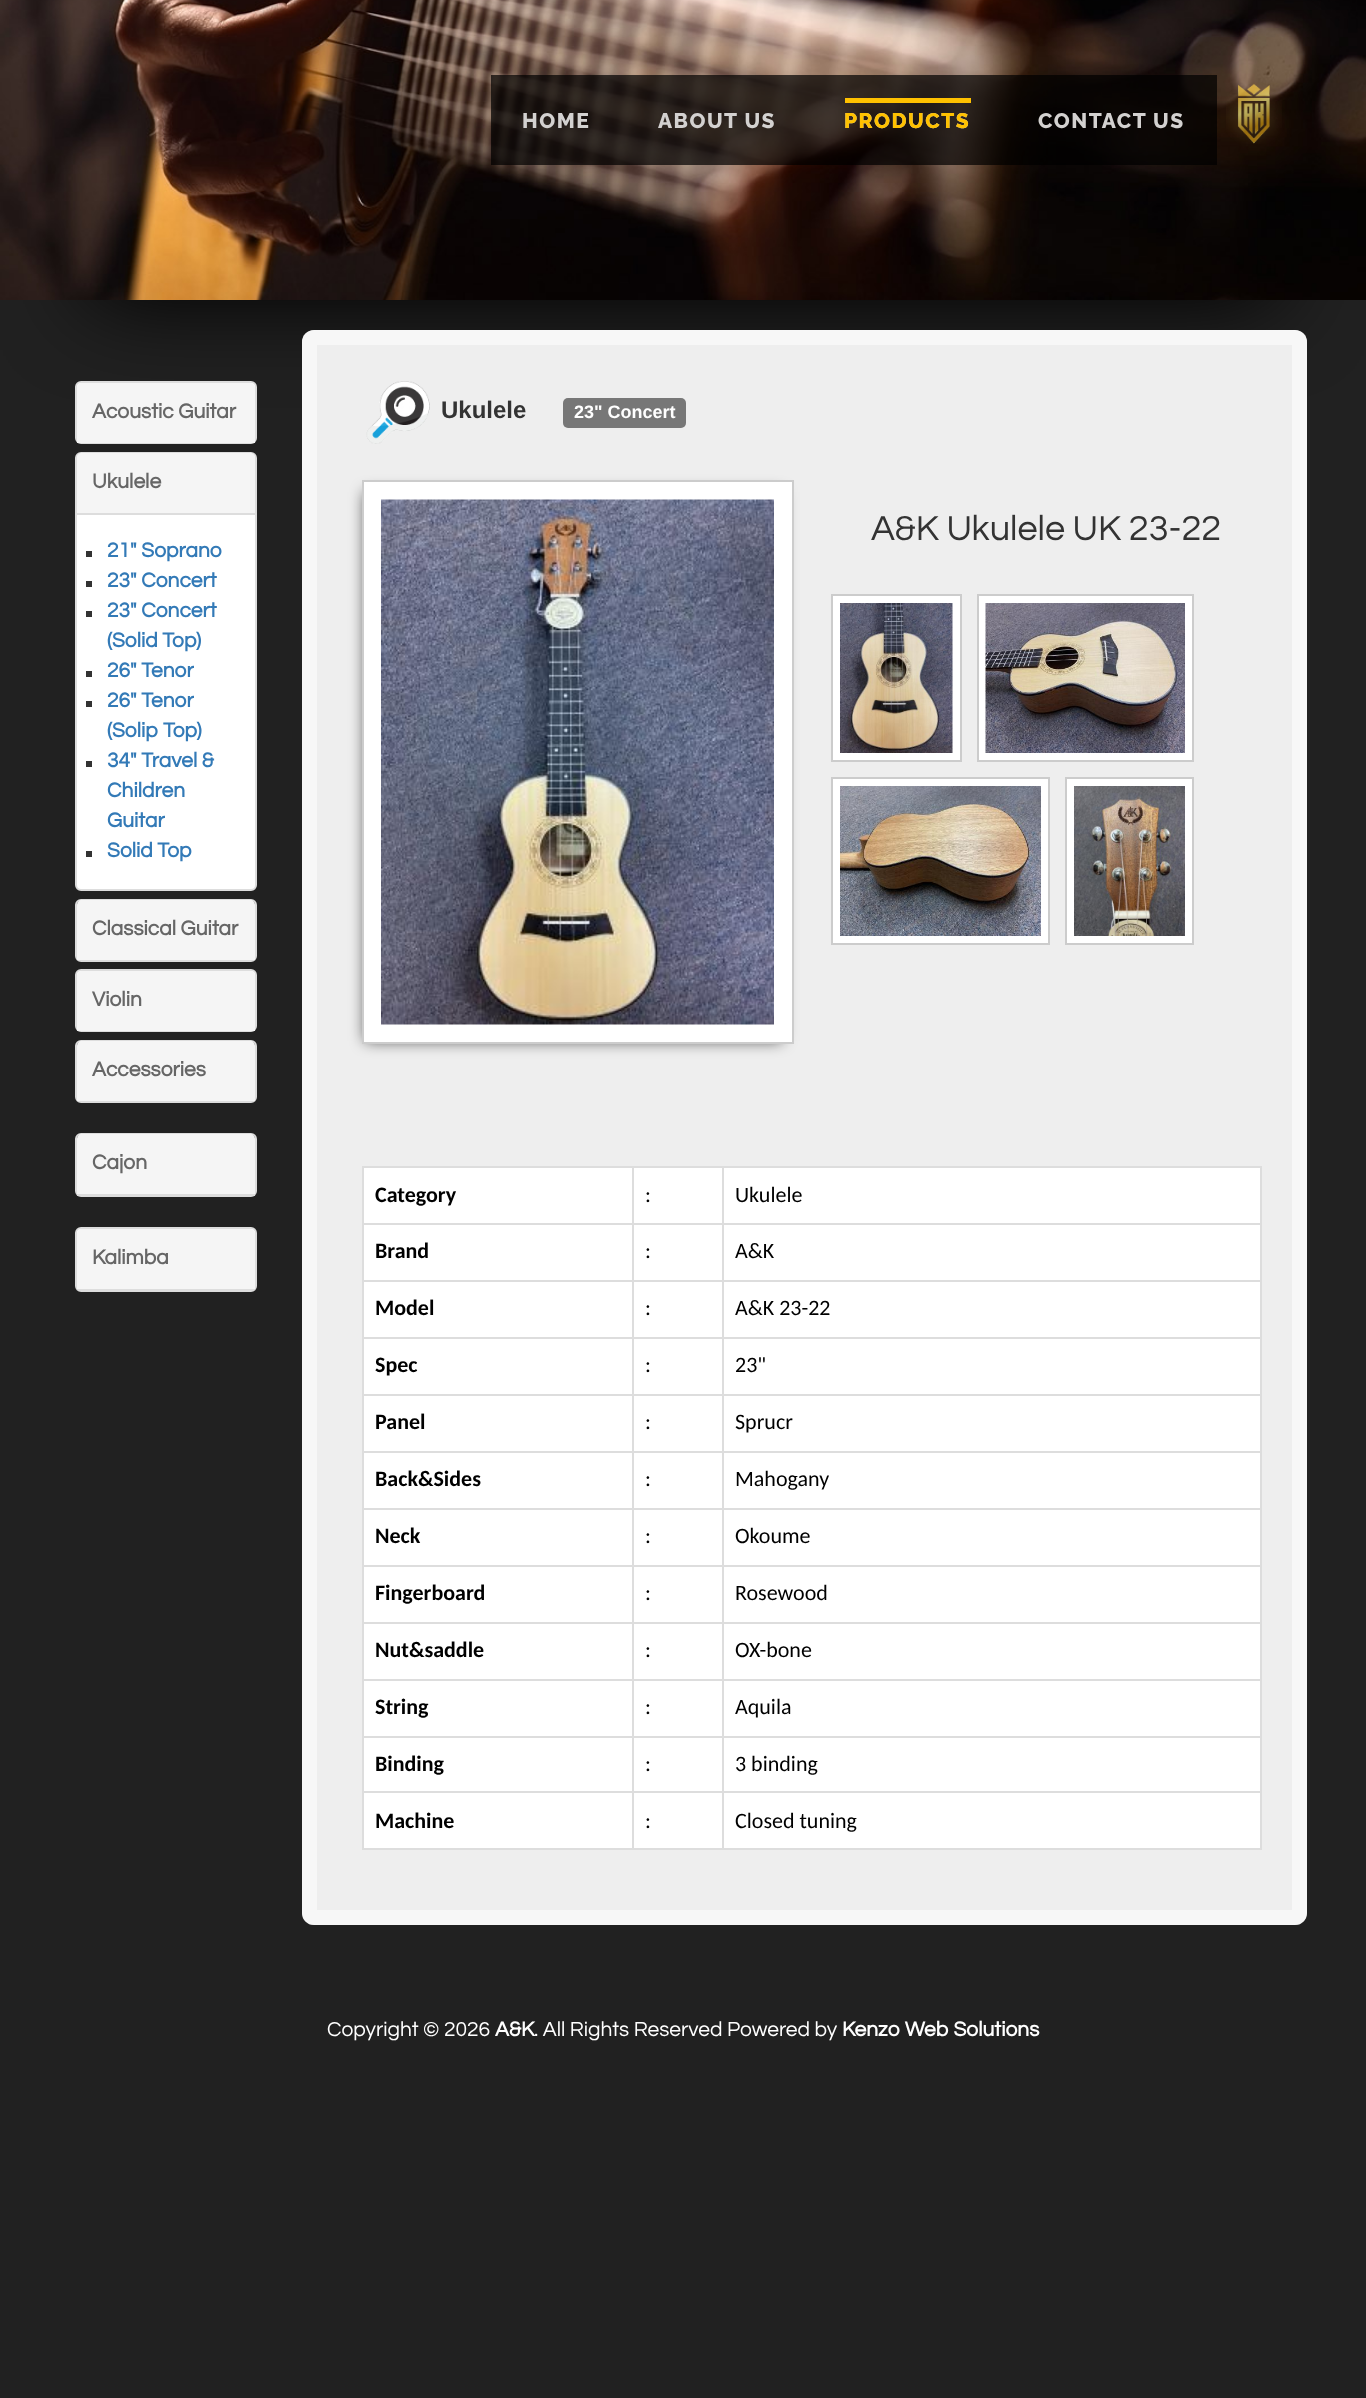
<?xml version="1.0" encoding="UTF-8"?>
<svg xmlns="http://www.w3.org/2000/svg" xmlns:xlink="http://www.w3.org/1999/xlink" width="1366" height="2398">
  <rect width="100%" height="100%" fill="#212121" />
  <rect x="90" y="180" width="1187" height="120" fill="#000000" filter="blur(45px)" />
  <image x="0" y="0" width="1366" height="300" xlink:href="image1.png" />
  <rect x="491" y="75" width="726" height="90" fill="#000000" fill-opacity="0.7" />
  <rect x="845" y="98" width="126" height="5" fill="#ffc100" />
  <image x="1226" y="83" width="56" height="61" xlink:href="image2.png" />
  <rect x="76" y="382" width="180" height="61" rx="5" fill="#ffffff" stroke="#dddddd" stroke-width="2" />
  <path d="M 82 383 h 168 c 3 0 5 2 5 5 v 55 h -178 v -55 c 0 -3 2 -5 5 -5 z" fill="#f5f5f5" />
  <rect x="76" y="453" width="180" height="437" rx="5" fill="#ffffff" stroke="#dddddd" stroke-width="2" />
  <path d="M 82 453 h 168 c 3 0 5 2 5 5 v 55 h -178 v -55 c 0 -3 2 -5 5 -5 z" fill="#f5f5f5" />
  <rect x="77" y="513" width="178" height="2" fill="#dddddd" />
  <rect x="86" y="551" width="6" height="6" fill="#333333" />
  <rect x="86" y="581" width="6" height="6" fill="#333333" />
  <rect x="86" y="611" width="6" height="6" fill="#333333" />
  <rect x="86" y="671" width="6" height="6" fill="#333333" />
  <rect x="86" y="701" width="6" height="6" fill="#333333" />
  <rect x="86" y="761" width="6" height="6" fill="#333333" />
  <rect x="86" y="851" width="6" height="6" fill="#333333" />
  <rect x="76" y="900" width="180" height="61" rx="5" fill="none" stroke="#dddddd" stroke-width="2" />
  <path d="M 82 900 h 168 c 3 0 5 2 5 5 v 55 h -178 v -55 c 0 -3 2 -5 5 -5 z" fill="#f5f5f5" />
  <rect x="76" y="970" width="180" height="61" rx="5" fill="#ffffff" stroke="#dddddd" stroke-width="2" />
  <path d="M 82 971 h 168 c 3 0 5 2 5 5 v 55 h -178 v -55 c 0 -3 2 -5 5 -5 z" fill="#f5f5f5" />
  <rect x="76" y="1041" width="180" height="61" rx="5" fill="none" stroke="#dddddd" stroke-width="2" />
  <path d="M 82 1041 h 168 c 3 0 5 2 5 5 v 55 h -178 v -55 c 0 -3 2 -5 5 -5 z" fill="#f5f5f5" />
  <rect x="76" y="1134" width="180" height="62" rx="5" fill="none" stroke="#dddddd" stroke-width="2" />
  <path d="M 82 1134 h 168 c 3 0 5 2 5 5 v 57 h -178 v -57 c 0 -3 2 -5 5 -5 z" fill="#f5f5f5" />
  <rect x="77" y="1194" width="178" height="2" fill="#dddddd" />
  <rect x="76" y="1228" width="180" height="63" rx="5" fill="#ffffff" stroke="#dddddd" stroke-width="2" />
  <path d="M 82 1229 h 168 c 3 0 5 2 5 5 v 56 h -178 v -56 c 0 -3 2 -5 5 -5 z" fill="#f5f5f5" />
  <rect x="77" y="1289" width="178" height="1" fill="#dddddd" />
  <rect x="302" y="330" width="1005" height="1595" rx="12" fill="#eeeeee" />
  <rect x="309.5" y="337.5" width="990" height="1580" rx="4.5" fill="none" stroke="#ffffff" stroke-opacity="0.5" stroke-width="15" />
  <image x="366" y="381" width="64" height="63" xlink:href="image3.png" />
  <rect x="563" y="398" width="123" height="30" rx="5" fill="#777777" />
  <rect x="365" y="492" width="417" height="549" fill="#000000" fill-opacity="0.71" filter="blur(7.5px)" />
  <rect x="363" y="481" width="430" height="562" fill="#ffffff" stroke="#cccccc" stroke-width="2" />
  <image x="381" y="499" width="393" height="526" xlink:href="image4.png" />
  <rect x="832" y="595" width="129" height="166" fill="#ffffff" stroke="#cccccc" stroke-width="2" />
  <image x="840" y="603" width="113" height="150" xlink:href="image5.png" />
  <rect x="978" y="595" width="215" height="166" fill="#ffffff" stroke="#cccccc" stroke-width="2" />
  <image x="985" y="603" width="200" height="150" xlink:href="image6.png" />
  <rect x="832" y="778" width="217" height="166" fill="#ffffff" stroke="#cccccc" stroke-width="2" />
  <image x="840" y="786" width="201" height="150" xlink:href="image7.png" />
  <rect x="1066" y="778" width="127" height="166" fill="#ffffff" stroke="#cccccc" stroke-width="2" />
  <image x="1074" y="786" width="111" height="150" xlink:href="image8.png" />
  <rect x="364" y="1168" width="896" height="680" fill="#ffffff" />
  <rect x="362" y="1166" width="900" height="2" fill="#dddddd" />
  <rect x="1260" y="1166" width="2" height="684" fill="#dddddd" />
  <rect x="362" y="1848" width="900" height="2" fill="#dddddd" />
  <rect x="362" y="1166" width="2" height="684" fill="#dddddd" />
  <rect x="722" y="1223" width="540" height="2" fill="#dddddd" />
  <rect x="722" y="1280" width="540" height="2" fill="#dddddd" />
  <rect x="722" y="1337" width="540" height="2" fill="#dddddd" />
  <rect x="722" y="1394" width="540" height="2" fill="#dddddd" />
  <rect x="722" y="1451" width="540" height="2" fill="#dddddd" />
  <rect x="722" y="1508" width="540" height="2" fill="#dddddd" />
  <rect x="722" y="1565" width="540" height="2" fill="#dddddd" />
  <rect x="722" y="1622" width="540" height="2" fill="#dddddd" />
  <rect x="722" y="1679" width="540" height="2" fill="#dddddd" />
  <rect x="722" y="1736" width="540" height="2" fill="#dddddd" />
  <rect x="722" y="1791" width="540" height="2" fill="#dddddd" />
  <rect x="722" y="1791" width="2" height="59" fill="#dddddd" />
  <rect x="632" y="1791" width="91" height="2" fill="#dddddd" />
  <rect x="722" y="1736" width="2" height="57" fill="#dddddd" />
  <rect x="632" y="1736" width="91" height="2" fill="#dddddd" />
  <rect x="722" y="1679" width="2" height="58" fill="#dddddd" />
  <rect x="632" y="1679" width="91" height="2" fill="#dddddd" />
  <rect x="722" y="1622" width="2" height="58" fill="#dddddd" />
  <rect x="632" y="1622" width="91" height="2" fill="#dddddd" />
  <rect x="722" y="1565" width="2" height="58" fill="#dddddd" />
  <rect x="632" y="1565" width="91" height="2" fill="#dddddd" />
  <rect x="722" y="1508" width="2" height="58" fill="#dddddd" />
  <rect x="632" y="1508" width="91" height="2" fill="#dddddd" />
  <rect x="722" y="1451" width="2" height="58" fill="#dddddd" />
  <rect x="632" y="1451" width="91" height="2" fill="#dddddd" />
  <rect x="722" y="1394" width="2" height="58" fill="#dddddd" />
  <rect x="632" y="1394" width="91" height="2" fill="#dddddd" />
  <rect x="722" y="1337" width="2" height="58" fill="#dddddd" />
  <rect x="632" y="1337" width="91" height="2" fill="#dddddd" />
  <rect x="722" y="1280" width="2" height="58" fill="#dddddd" />
  <rect x="632" y="1280" width="91" height="2" fill="#dddddd" />
  <rect x="722" y="1223" width="2" height="58" fill="#dddddd" />
  <rect x="632" y="1223" width="91" height="2" fill="#dddddd" />
  <rect x="632" y="1791" width="2" height="59" fill="#dddddd" />
  <rect x="362" y="1791" width="271" height="2" fill="#dddddd" />
  <rect x="632" y="1736" width="2" height="57" fill="#dddddd" />
  <rect x="362" y="1736" width="271" height="2" fill="#dddddd" />
  <rect x="632" y="1679" width="2" height="58" fill="#dddddd" />
  <rect x="362" y="1679" width="271" height="2" fill="#dddddd" />
  <rect x="632" y="1622" width="2" height="58" fill="#dddddd" />
  <rect x="362" y="1622" width="271" height="2" fill="#dddddd" />
  <rect x="632" y="1565" width="2" height="58" fill="#dddddd" />
  <rect x="362" y="1565" width="271" height="2" fill="#dddddd" />
  <rect x="632" y="1508" width="2" height="58" fill="#dddddd" />
  <rect x="362" y="1508" width="271" height="2" fill="#dddddd" />
  <rect x="632" y="1451" width="2" height="58" fill="#dddddd" />
  <rect x="362" y="1451" width="271" height="2" fill="#dddddd" />
  <rect x="632" y="1394" width="2" height="58" fill="#dddddd" />
  <rect x="362" y="1394" width="271" height="2" fill="#dddddd" />
  <rect x="632" y="1337" width="2" height="58" fill="#dddddd" />
  <rect x="362" y="1337" width="271" height="2" fill="#dddddd" />
  <rect x="632" y="1280" width="2" height="58" fill="#dddddd" />
  <rect x="362" y="1280" width="271" height="2" fill="#dddddd" />
  <rect x="632" y="1223" width="2" height="58" fill="#dddddd" />
  <rect x="362" y="1223" width="271" height="2" fill="#dddddd" />
  <rect x="632" y="1166" width="2" height="58" fill="#dddddd" />
  <rect x="722" y="1166" width="2" height="58" fill="#dddddd" />
  <text x="522" y="128" style="font-family: Raleway; font-size: 21px; font-weight: 800; letter-spacing: 1.5px; fill: #d3d1d0">HOME</text>
  <text x="658" y="128" style="font-family: Raleway; font-size: 21px; font-weight: 800; letter-spacing: 1.5px; fill: #d3d1d0">ABOUT US</text>
  <text x="844" y="128" style="font-family: Raleway; font-size: 21px; font-weight: 800; letter-spacing: 1.5px; fill: #d3d1d0">PRODUCTS</text>
  <text x="844" y="128" style="font-family: Raleway; font-size: 21px; font-weight: 800; letter-spacing: 1.5px; fill: #ffc100">PRODUCTS</text>
  <text x="1038" y="128" style="font-family: Raleway; font-size: 21px; font-weight: 800; letter-spacing: 1.5px; fill: #d3d1d0">CONTACT US</text>
  <text x="92" y="418" style="font-family: Questrial; font-size: 21px; font-weight: bold; fill: #666666">Acoustic Guitar</text>
  <text x="92" y="488" style="font-family: Questrial; font-size: 21px; font-weight: bold; fill: #666666">Ukulele</text>
  <text x="107" y="557" style="font-family: Questrial; font-size: 21px; font-weight: bold; fill: #337ab7">21" Soprano</text>
  <text x="107" y="587" style="font-family: Questrial; font-size: 21px; font-weight: bold; fill: #337ab7">23" Concert</text>
  <text x="107" y="617" style="font-family: Questrial; font-size: 21px; font-weight: bold; fill: #337ab7">23" Concert</text>
  <text x="107" y="647" style="font-family: Questrial; font-size: 21px; font-weight: bold; fill: #337ab7">(Solid Top)</text>
  <text x="107" y="677" style="font-family: Questrial; font-size: 21px; font-weight: bold; fill: #337ab7">26" Tenor</text>
  <text x="107" y="707" style="font-family: Questrial; font-size: 21px; font-weight: bold; fill: #337ab7">26" Tenor</text>
  <text x="107" y="737" style="font-family: Questrial; font-size: 21px; font-weight: bold; fill: #337ab7">(Solip Top)</text>
  <text x="107" y="767" style="font-family: Questrial; font-size: 21px; font-weight: bold; fill: #337ab7">34" Travel &amp;</text>
  <text x="107" y="797" style="font-family: Questrial; font-size: 21px; font-weight: bold; fill: #337ab7">Children</text>
  <text x="107" y="827" style="font-family: Questrial; font-size: 21px; font-weight: bold; fill: #337ab7">Guitar</text>
  <text x="107" y="857" style="font-family: Questrial; font-size: 21px; font-weight: bold; fill: #337ab7">Solid Top</text>
  <text x="92" y="935" style="font-family: Questrial; font-size: 21px; font-weight: bold; fill: #666666">Classical Guitar</text>
  <text x="92" y="1006" style="font-family: Questrial; font-size: 21px; font-weight: bold; fill: #666666">Violin</text>
  <text x="92" y="1076" style="font-family: Questrial; font-size: 21px; font-weight: bold; fill: #666666">Accessories</text>
  <text x="92" y="1169" style="font-family: Questrial; font-size: 21px; font-weight: bold; fill: #666666">Cajon</text>
  <text x="92" y="1264" style="font-family: Questrial; font-size: 21px; font-weight: bold; fill: #666666">Kalimba</text>
  <text x="441" y="418" style="font-family: Liberation Sans; font-size: 24px; font-weight: bold; fill: #333333">Ukulele</text>
  <text x="574" y="418" style="font-family: Liberation Sans; font-size: 18px; font-weight: bold; fill: #ffffff">23" Concert</text>
  <text x="871" y="540" style="font-family: Questrial; font-size: 36px; fill: #333333">A&amp;K Ukulele UK 23-22</text>
  <text x="375" y="1202" style="font-family: Carlito; font-size: 22px; font-weight: bold; fill: #000000">Category</text>
  <text x="645" y="1202" style="font-family: Carlito; font-size: 22px; fill: #000000">:</text>
  <text x="735" y="1202" style="font-family: Carlito; font-size: 22px; fill: #000000">Ukulele</text>
  <text x="375" y="1258" style="font-family: Carlito; font-size: 22px; font-weight: bold; fill: #000000">Brand</text>
  <text x="645" y="1258" style="font-family: Carlito; font-size: 22px; fill: #000000">:</text>
  <text x="735" y="1258" style="font-family: Carlito; font-size: 22px; fill: #000000">A&amp;K</text>
  <text x="375" y="1315" style="font-family: Carlito; font-size: 22px; font-weight: bold; fill: #000000">Model</text>
  <text x="645" y="1315" style="font-family: Carlito; font-size: 22px; fill: #000000">:</text>
  <text x="735" y="1315" style="font-family: Carlito; font-size: 22px; fill: #000000">A&amp;K 23-22</text>
  <text x="375" y="1372" style="font-family: Carlito; font-size: 22px; font-weight: bold; fill: #000000">Spec</text>
  <text x="645" y="1372" style="font-family: Carlito; font-size: 22px; fill: #000000">:</text>
  <text x="735" y="1372" style="font-family: Carlito; font-size: 22px; fill: #000000">23"</text>
  <text x="375" y="1429" style="font-family: Carlito; font-size: 22px; font-weight: bold; fill: #000000">Panel</text>
  <text x="645" y="1429" style="font-family: Carlito; font-size: 22px; fill: #000000">:</text>
  <text x="735" y="1429" style="font-family: Carlito; font-size: 22px; fill: #000000">Sprucr</text>
  <text x="375" y="1486" style="font-family: Carlito; font-size: 22px; font-weight: bold; fill: #000000">Back&amp;Sides</text>
  <text x="645" y="1486" style="font-family: Carlito; font-size: 22px; fill: #000000">:</text>
  <text x="735" y="1486" style="font-family: Carlito; font-size: 22px; fill: #000000">Mahogany</text>
  <text x="375" y="1543" style="font-family: Carlito; font-size: 22px; font-weight: bold; fill: #000000">Neck</text>
  <text x="645" y="1543" style="font-family: Carlito; font-size: 22px; fill: #000000">:</text>
  <text x="735" y="1543" style="font-family: Carlito; font-size: 22px; fill: #000000">Okoume</text>
  <text x="375" y="1600" style="font-family: Carlito; font-size: 22px; font-weight: bold; fill: #000000">Fingerboard</text>
  <text x="645" y="1600" style="font-family: Carlito; font-size: 22px; fill: #000000">:</text>
  <text x="735" y="1600" style="font-family: Carlito; font-size: 22px; fill: #000000">Rosewood</text>
  <text x="375" y="1657" style="font-family: Carlito; font-size: 22px; font-weight: bold; fill: #000000">Nut&amp;saddle</text>
  <text x="645" y="1657" style="font-family: Carlito; font-size: 22px; fill: #000000">:</text>
  <text x="735" y="1657" style="font-family: Carlito; font-size: 22px; fill: #000000">OX-bone</text>
  <text x="375" y="1714" style="font-family: Carlito; font-size: 22px; font-weight: bold; fill: #000000">String</text>
  <text x="645" y="1714" style="font-family: Carlito; font-size: 22px; fill: #000000">:</text>
  <text x="735" y="1714" style="font-family: Carlito; font-size: 22px; fill: #000000">Aquila</text>
  <text x="375" y="1771" style="font-family: Carlito; font-size: 22px; font-weight: bold; fill: #000000">Binding</text>
  <text x="645" y="1771" style="font-family: Carlito; font-size: 22px; fill: #000000">:</text>
  <text x="735" y="1771" style="font-family: Carlito; font-size: 22px; fill: #000000">3 binding</text>
  <text x="375" y="1828" style="font-family: Carlito; font-size: 22px; font-weight: bold; fill: #000000">Machine</text>
  <text x="645" y="1828" style="font-family: Carlito; font-size: 22px; fill: #000000">:</text>
  <text x="735" y="1828" style="font-family: Carlito; font-size: 22px; fill: #000000">Closed tuning</text>
  <text x="327" y="2036" style="font-family: Questrial; font-size: 21px; fill: #ffffff">Copyright © 2026</text>
  <text x="495" y="2036" style="font-family: Questrial; font-size: 21px; font-weight: bold; fill: #ffffff">A&amp;K</text>
  <text x="534" y="2036" style="font-family: Questrial; font-size: 21px; fill: #ffffff">. All Rights Reserved Powered by</text>
  <text x="842" y="2036" style="font-family: Questrial; font-size: 21px; font-weight: bold; fill: #ffffff">Kenzo Web Solutions</text>
</svg>
